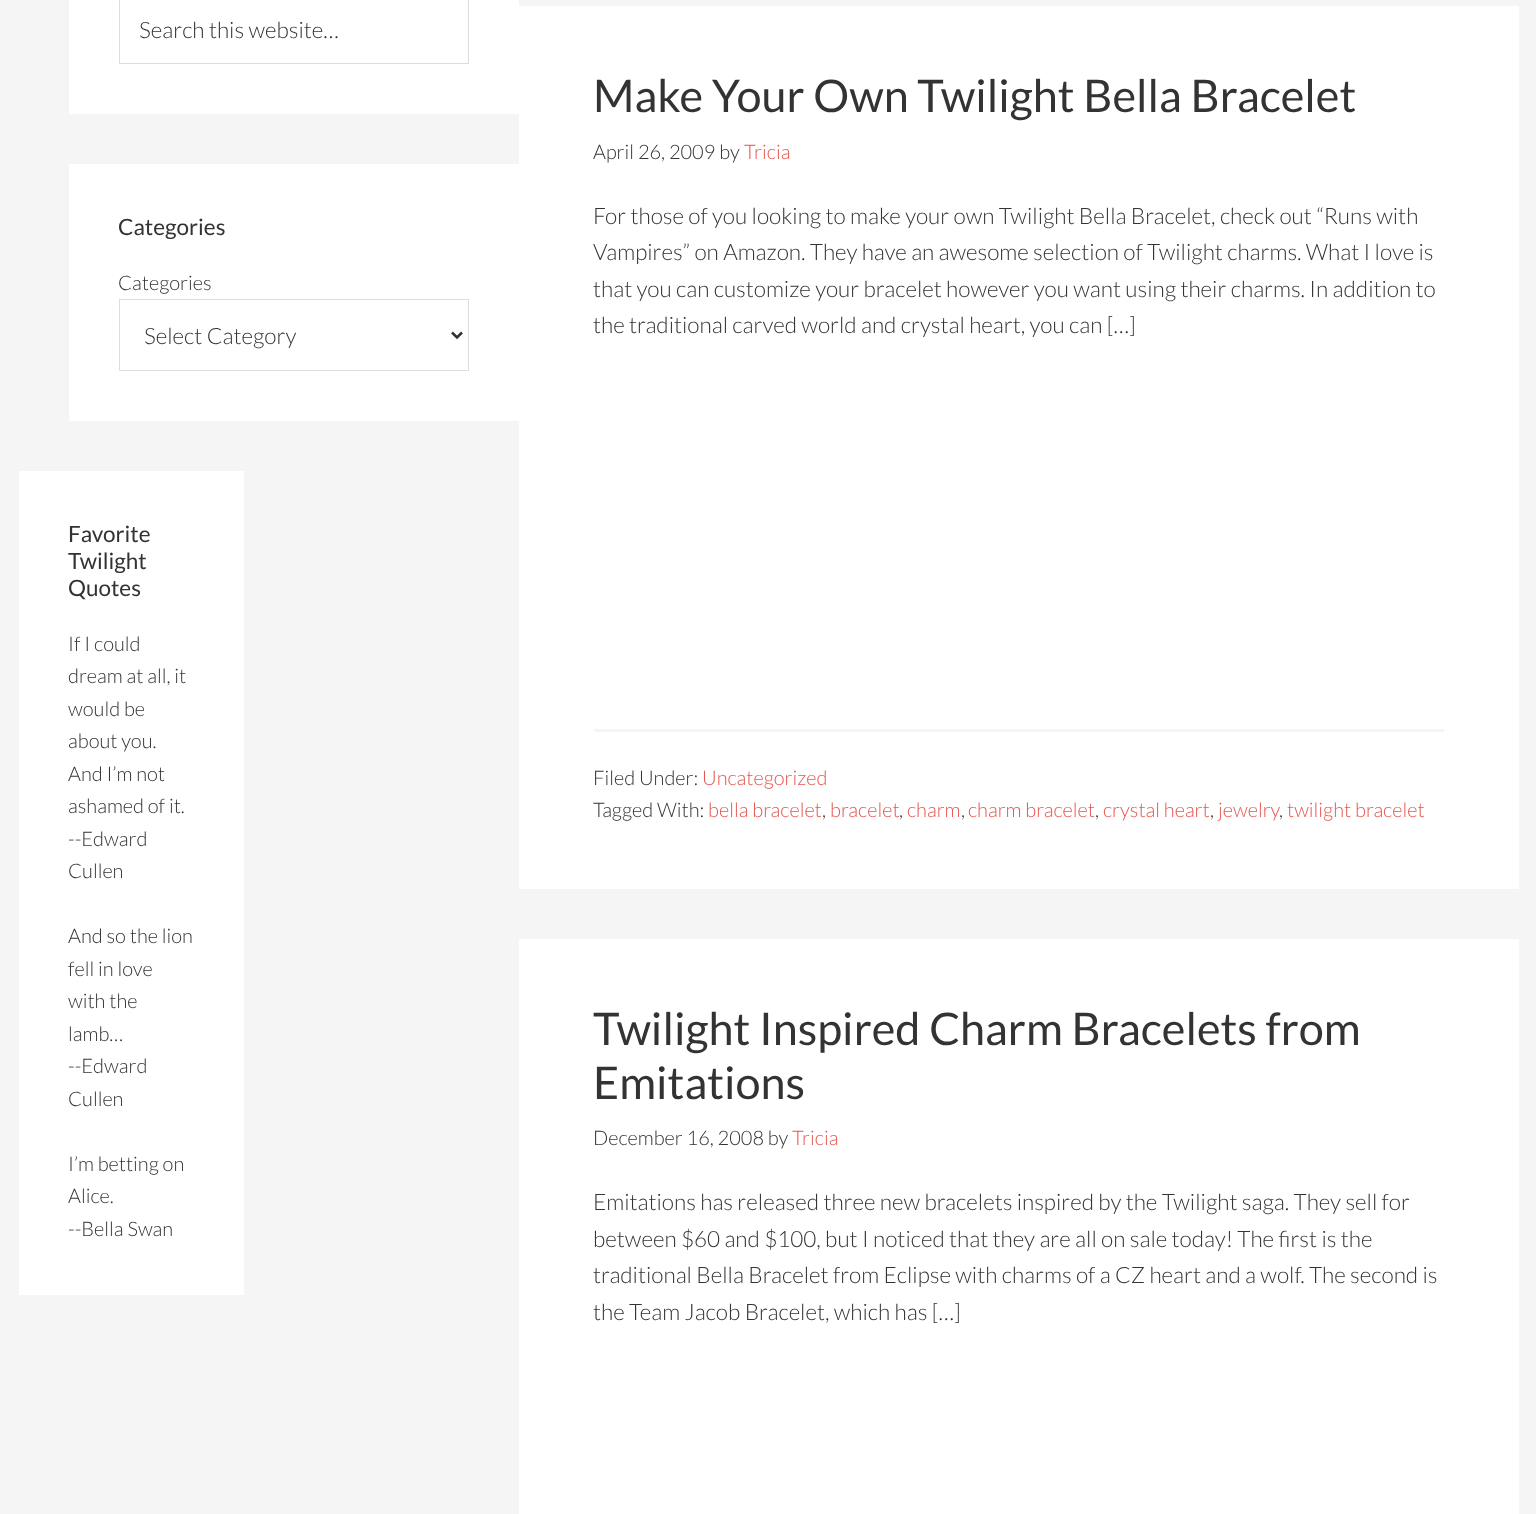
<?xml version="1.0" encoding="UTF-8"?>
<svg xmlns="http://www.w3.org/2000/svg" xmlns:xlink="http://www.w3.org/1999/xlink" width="1536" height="1514">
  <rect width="100%" height="100%" fill="#f5f5f5" />
  <rect x="69" width="450" height="114" fill="#ffffff" />
  <rect x="119.5" y="-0.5" width="349" height="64" fill="none" stroke="#dddddd" />
  <rect x="69" y="164" width="450" height="257" fill="#ffffff" />
  <rect x="119.5" y="299.5" width="349" height="71" fill="none" stroke="#dddddd" />
  <path d="M 452 332.5 l 5 5 l 5 -5" fill="none" stroke="#333333" stroke-width="2.5" />
  <rect x="519" y="6" width="1000" height="883" fill="#ffffff" />
  <rect x="594" y="729" width="850" height="3" fill="#f5f5f5" />
  <rect x="519" y="939" width="1000" height="575" fill="#ffffff" />
  <rect x="19" y="471" width="225" height="824" fill="#ffffff" />
  <text x="139" y="38" style="font-family: Lato; font-size: 22.5px; font-weight: 300; fill: #333333">Search this website…</text>
  <text x="118" y="235" style="font-family: Lato; font-size: 22.5px; fill: #333333">Categories</text>
  <text x="118" y="290" style="font-family: Lato; font-size: 20px; font-weight: 300; fill: #333333">Categories</text>
  <text x="144" y="344" style="font-family: Lato; font-size: 22.5px; font-weight: 300; fill: #333333">Select Category</text>
  <text x="593" y="112" style="font-family: Lato; font-size: 45px; fill: #333333">Make Your Own Twilight Bella Bracelet</text>
  <text x="593" y="159" style="font-family: Lato; font-size: 20px; font-weight: 300; fill: #333333">April 26, 2009 by</text>
  <text x="744" y="159" style="font-family: Lato; font-size: 20px; font-weight: 300; fill: #e5554e">Tricia</text>
  <text x="593" y="224" style="font-family: Lato; font-size: 22.5px; font-weight: 300; fill: #333333">For those of you looking to make your own Twilight Bella Bracelet, check out “Runs with</text>
  <text x="593" y="260" style="font-family: Lato; font-size: 22.5px; font-weight: 300; fill: #333333">Vampires” on Amazon. They have an awesome selection of Twilight charms. What I love is</text>
  <text x="593" y="297" style="font-family: Lato; font-size: 22.5px; font-weight: 300; fill: #333333">that you can customize your bracelet however you want using their charms. In addition to</text>
  <text x="593" y="333" style="font-family: Lato; font-size: 22.5px; font-weight: 300; fill: #333333">the traditional carved world and crystal heart, you can […]</text>
  <text x="593" y="785" style="font-family: Lato; font-size: 20px; font-weight: 300; fill: #333333">Filed Under:</text>
  <text x="702" y="785" style="font-family: Lato; font-size: 20px; font-weight: 300; fill: #e5554e">Uncategorized</text>
  <text x="593" y="817" style="font-family: Lato; font-size: 20px; font-weight: 300; fill: #333333">Tagged With:</text>
  <text x="708" y="817" style="font-family: Lato; font-size: 20px; font-weight: 300; fill: #e5554e">bella bracelet</text>
  <text x="822" y="817" style="font-family: Lato; font-size: 20px; font-weight: 300; fill: #333333">,</text>
  <text x="830" y="817" style="font-family: Lato; font-size: 20px; font-weight: 300; fill: #e5554e">bracelet</text>
  <text x="899" y="817" style="font-family: Lato; font-size: 20px; font-weight: 300; fill: #333333">,</text>
  <text x="907" y="817" style="font-family: Lato; font-size: 20px; font-weight: 300; fill: #e5554e">charm</text>
  <text x="961" y="817" style="font-family: Lato; font-size: 20px; font-weight: 300; fill: #333333">,</text>
  <text x="968" y="817" style="font-family: Lato; font-size: 20px; font-weight: 300; fill: #e5554e">charm bracelet</text>
  <text x="1095" y="817" style="font-family: Lato; font-size: 20px; font-weight: 300; fill: #333333">,</text>
  <text x="1103" y="817" style="font-family: Lato; font-size: 20px; font-weight: 300; fill: #e5554e">crystal heart</text>
  <text x="1210" y="817" style="font-family: Lato; font-size: 20px; font-weight: 300; fill: #333333">,</text>
  <text x="1218" y="817" style="font-family: Lato; font-size: 20px; font-weight: 300; fill: #e5554e">jewelry</text>
  <text x="1279" y="817" style="font-family: Lato; font-size: 20px; font-weight: 300; fill: #333333">,</text>
  <text x="1287" y="817" style="font-family: Lato; font-size: 20px; font-weight: 300; fill: #e5554e">twilight bracelet</text>
  <text x="593" y="1045" style="font-family: Lato; font-size: 45px; fill: #333333">Twilight Inspired Charm Bracelets from</text>
  <text x="593" y="1099" style="font-family: Lato; font-size: 45px; fill: #333333">Emitations</text>
  <text x="593" y="1145" style="font-family: Lato; font-size: 20px; font-weight: 300; fill: #333333">December 16, 2008 by</text>
  <text x="792" y="1145" style="font-family: Lato; font-size: 20px; font-weight: 300; fill: #e5554e">Tricia</text>
  <text x="593" y="1210" style="font-family: Lato; font-size: 22.5px; font-weight: 300; fill: #333333">Emitations has released three new bracelets inspired by the Twilight saga. They sell for</text>
  <text x="593" y="1247" style="font-family: Lato; font-size: 22.5px; font-weight: 300; fill: #333333">between $60 and $100, but I noticed that they are all on sale today! The first is the</text>
  <text x="593" y="1283" style="font-family: Lato; font-size: 22.5px; font-weight: 300; fill: #333333">traditional Bella Bracelet from Eclipse with charms of a CZ heart and a wolf. The second is</text>
  <text x="593" y="1320" style="font-family: Lato; font-size: 22.5px; font-weight: 300; fill: #333333">the Team Jacob Bracelet, which has […]</text>
  <text x="68" y="542" style="font-family: Lato; font-size: 22.5px; fill: #333333">Favorite</text>
  <text x="68" y="569" style="font-family: Lato; font-size: 22.5px; fill: #333333">Twilight</text>
  <text x="68" y="596" style="font-family: Lato; font-size: 22.5px; fill: #333333">Quotes</text>
  <text x="68" y="651" style="font-family: Lato; font-size: 20px; font-weight: 300; fill: #333333">If I could</text>
  <text x="68" y="683" style="font-family: Lato; font-size: 20px; font-weight: 300; fill: #333333">dream at all, it</text>
  <text x="68" y="716" style="font-family: Lato; font-size: 20px; font-weight: 300; fill: #333333">would be</text>
  <text x="68" y="748" style="font-family: Lato; font-size: 20px; font-weight: 300; fill: #333333">about you.</text>
  <text x="68" y="781" style="font-family: Lato; font-size: 20px; font-weight: 300; fill: #333333">And I’m not</text>
  <text x="68" y="813" style="font-family: Lato; font-size: 20px; font-weight: 300; fill: #333333">ashamed of it.</text>
  <text x="68" y="846" style="font-family: Lato; font-size: 20px; font-weight: 300; fill: #333333">--Edward</text>
  <text x="68" y="878" style="font-family: Lato; font-size: 20px; font-weight: 300; fill: #333333">Cullen</text>
  <text x="68" y="943" style="font-family: Lato; font-size: 20px; font-weight: 300; fill: #333333">And so the lion</text>
  <text x="68" y="976" style="font-family: Lato; font-size: 20px; font-weight: 300; fill: #333333">fell in love</text>
  <text x="68" y="1008" style="font-family: Lato; font-size: 20px; font-weight: 300; fill: #333333">with the</text>
  <text x="68" y="1041" style="font-family: Lato; font-size: 20px; font-weight: 300; fill: #333333">lamb…</text>
  <text x="68" y="1073" style="font-family: Lato; font-size: 20px; font-weight: 300; fill: #333333">--Edward</text>
  <text x="68" y="1106" style="font-family: Lato; font-size: 20px; font-weight: 300; fill: #333333">Cullen</text>
  <text x="68" y="1171" style="font-family: Lato; font-size: 20px; font-weight: 300; fill: #333333">I’m betting on</text>
  <text x="68" y="1203" style="font-family: Lato; font-size: 20px; font-weight: 300; fill: #333333">Alice.</text>
  <text x="68" y="1236" style="font-family: Lato; font-size: 20px; font-weight: 300; fill: #333333">--Bella Swan</text>
</svg>
